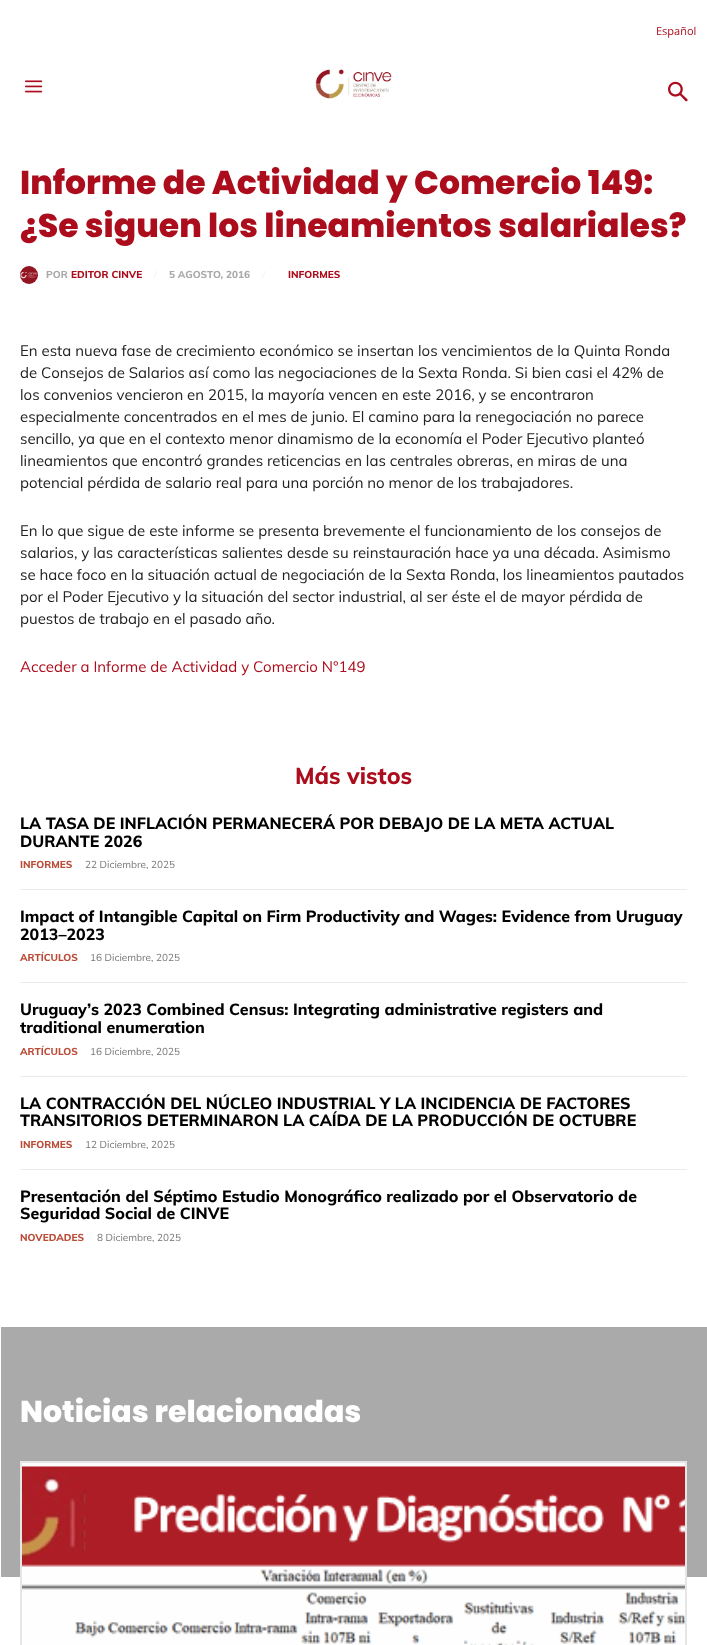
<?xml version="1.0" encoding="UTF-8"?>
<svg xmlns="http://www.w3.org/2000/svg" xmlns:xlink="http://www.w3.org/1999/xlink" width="707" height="1645">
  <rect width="100%" height="100%" fill="#ffffff" />
  <image x="25" y="80" width="18" height="13" xlink:href="image1.png" />
  <image x="315" y="69" width="77" height="30" xlink:href="image2.png" />
  <image x="668" y="81" width="20" height="21" xlink:href="image3.png" />
  <image x="20" y="266" width="18" height="18" xlink:href="image4.png" />
  <path d="M 156.5 271 l -3.5 7.5 h 0.5 l 3.5 -7.5 z" fill="#e6e6e6" />
  <path d="M 265.5 271 l -3.5 7.5 h 0.5 l 3.5 -7.5 z" fill="#e6e6e6" />
  <rect x="20" y="889" width="667" height="1" fill="#eaeaea" />
  <rect x="20" y="982" width="667" height="1" fill="#eaeaea" />
  <rect x="20" y="1076" width="667" height="1" fill="#eaeaea" />
  <rect x="20" y="1169" width="667" height="1" fill="#eaeaea" />
  <rect x="1" y="1327" width="706" height="250" fill="#aaaaaa" />
  <rect x="22" y="1463" width="663" height="4" fill="#fcfcfc" />
  <rect x="21" y="1462" width="665" height="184" fill="none" stroke="#e6e6e6" stroke-width="2" />
  <image x="22" y="1466" width="663" height="179" xlink:href="image5.png" />
  <text x="656" y="35" style="font-family: Open Sans; font-size: 11px; fill: #ac0d1c">Español</text>
  <text x="20" y="194" style="font-family: Poppins; font-size: 33px; font-weight: 800; fill: #ac0d1c">Informe de Actividad y Comercio 149:</text>
  <text x="20" y="237" style="font-family: Poppins; font-size: 33px; font-weight: 800; fill: #ac0d1c">¿Se siguen los lineamientos salariales?</text>
  <text x="46" y="278" style="font-family: Muli; font-size: 10px; font-weight: 800; fill: #aaaaaa">POR</text>
  <text x="71" y="278" style="font-family: Muli; font-size: 10px; font-weight: 800; fill: #ac0d1c">EDITOR CINVE</text>
  <text x="169" y="278" style="font-family: Muli; font-size: 10px; font-weight: 800; fill: #aaaaaa">5 AGOSTO, 2016</text>
  <text x="288" y="278" style="font-family: Muli; font-size: 10px; font-weight: 800; fill: #ac0d1c">INFORMES</text>
  <text x="20" y="356" style="font-family: Muli; font-size: 15px; fill: #222222">En esta nueva fase de crecimiento económico se insertan los vencimientos de la Quinta Ronda</text>
  <text x="20" y="378" style="font-family: Muli; font-size: 15px; fill: #222222">de Consejos de Salarios así como las negociaciones de la Sexta Ronda. Si bien casi el 42% de</text>
  <text x="20" y="400" style="font-family: Muli; font-size: 15px; fill: #222222">los convenios vencieron en 2015, la mayoría vencen en este 2016, y se encontraron</text>
  <text x="20" y="422" style="font-family: Muli; font-size: 15px; fill: #222222">especialmente concentrados en el mes de junio. El camino para la renegociación no parece</text>
  <text x="20" y="444" style="font-family: Muli; font-size: 15px; fill: #222222">sencillo, ya que en el contexto menor dinamismo de la economía el Poder Ejecutivo planteó</text>
  <text x="20" y="466" style="font-family: Muli; font-size: 15px; fill: #222222">lineamientos que encontró grandes reticencias en las centrales obreras, en miras de una</text>
  <text x="20" y="488" style="font-family: Muli; font-size: 15px; fill: #222222">potencial pérdida de salario real para una porción no menor de los trabajadores.</text>
  <text x="20" y="536" style="font-family: Muli; font-size: 15px; fill: #222222">En lo que sigue de este informe se presenta brevemente el funcionamiento de los consejos de</text>
  <text x="20" y="558" style="font-family: Muli; font-size: 15px; fill: #222222">salarios, y las características salientes desde su reinstauración hace ya una década. Asimismo</text>
  <text x="20" y="580" style="font-family: Muli; font-size: 15px; fill: #222222">se hace foco en la situación actual de negociación de la Sexta Ronda, los lineamientos pautados</text>
  <text x="20" y="602" style="font-family: Muli; font-size: 15px; fill: #222222">por el Poder Ejecutivo y la situación del sector industrial, al ser éste el de mayor pérdida de</text>
  <text x="20" y="624" style="font-family: Muli; font-size: 15px; fill: #222222">puestos de trabajo en el pasado año.</text>
  <text x="20" y="672" style="font-family: Muli; font-size: 15px; fill: #ac0d1c">Acceder a Informe de Actividad y Comercio N°149</text>
  <text x="295" y="784" style="font-family: Muli; font-size: 23px; font-weight: 800; fill: #ac0d1c">Más vistos</text>
  <text x="20" y="829" style="font-family: Muli; font-size: 16px; font-weight: 800; fill: #000000">LA TASA DE INFLACIÓN PERMANECERÁ POR DEBAJO DE LA META ACTUAL</text>
  <text x="20" y="847" style="font-family: Muli; font-size: 16px; font-weight: 800; fill: #000000">DURANTE 2026</text>
  <text x="20" y="868" style="font-family: Muli; font-size: 10px; font-weight: 800; fill: #bb4c38">INFORMES</text>
  <text x="85" y="868" style="font-family: Muli; font-size: 10px; fill: #767676">22 Diciembre, 2025</text>
  <text x="20" y="922" style="font-family: Muli; font-size: 16px; font-weight: 800; fill: #000000">Impact of Intangible Capital on Firm Productivity and Wages: Evidence from Uruguay</text>
  <text x="20" y="940" style="font-family: Muli; font-size: 16px; font-weight: 800; fill: #000000">2013–2023</text>
  <text x="20" y="961" style="font-family: Muli; font-size: 10px; font-weight: 800; fill: #bb4c38">ARTÍCULOS</text>
  <text x="90" y="961" style="font-family: Muli; font-size: 10px; fill: #767676">16 Diciembre, 2025</text>
  <text x="20" y="1015" style="font-family: Muli; font-size: 16px; font-weight: 800; fill: #000000">Uruguay’s 2023 Combined Census: Integrating administrative registers and</text>
  <text x="20" y="1033" style="font-family: Muli; font-size: 16px; font-weight: 800; fill: #000000">traditional enumeration</text>
  <text x="20" y="1055" style="font-family: Muli; font-size: 10px; font-weight: 800; fill: #bb4c38">ARTÍCULOS</text>
  <text x="90" y="1055" style="font-family: Muli; font-size: 10px; fill: #767676">16 Diciembre, 2025</text>
  <text x="20" y="1109" style="font-family: Muli; font-size: 16px; font-weight: 800; fill: #000000">LA CONTRACCIÓN DEL NÚCLEO INDUSTRIAL Y LA INCIDENCIA DE FACTORES</text>
  <text x="20" y="1126" style="font-family: Muli; font-size: 16px; font-weight: 800; fill: #000000">TRANSITORIOS DETERMINARON LA CAÍDA DE LA PRODUCCIÓN DE OCTUBRE</text>
  <text x="20" y="1148" style="font-family: Muli; font-size: 10px; font-weight: 800; fill: #bb4c38">INFORMES</text>
  <text x="85" y="1148" style="font-family: Muli; font-size: 10px; fill: #767676">12 Diciembre, 2025</text>
  <text x="20" y="1202" style="font-family: Muli; font-size: 16px; font-weight: 800; fill: #000000">Presentación del Séptimo Estudio Monográfico realizado por el Observatorio de</text>
  <text x="20" y="1219" style="font-family: Muli; font-size: 16px; font-weight: 800; fill: #000000">Seguridad Social de CINVE</text>
  <text x="20" y="1241" style="font-family: Muli; font-size: 10px; font-weight: 800; fill: #bb4c38">NOVEDADES</text>
  <text x="97" y="1241" style="font-family: Muli; font-size: 10px; fill: #767676">8 Diciembre, 2025</text>
  <text x="20" y="1422" style="font-family: Poppins; font-size: 30px; font-weight: 800; fill: #ffffff">Noticias relacionadas</text>
</svg>
